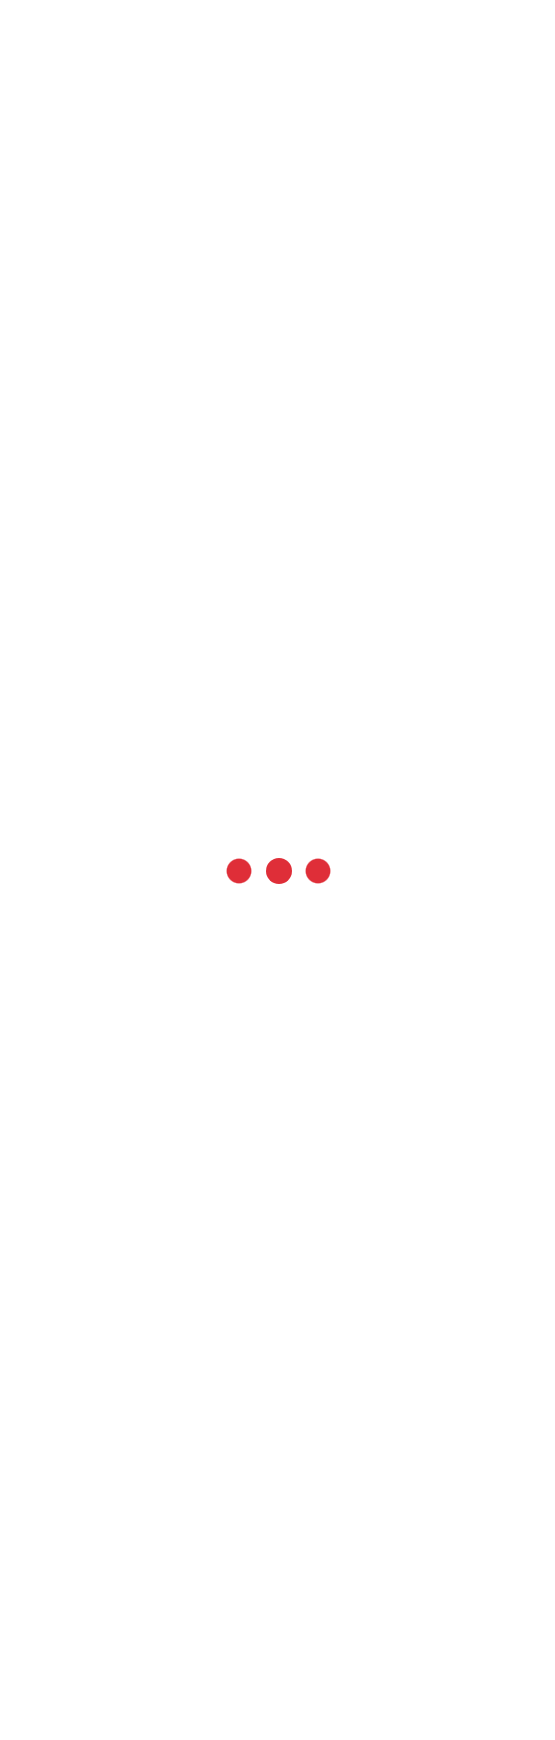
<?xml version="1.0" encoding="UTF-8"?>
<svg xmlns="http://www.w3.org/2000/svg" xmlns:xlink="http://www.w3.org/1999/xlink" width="555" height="1740">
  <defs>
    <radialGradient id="g1" gradientUnits="userSpaceOnUse" cx="318" cy="871" r="13"><stop offset="0.9" stop-color="#df2e38" /><stop offset="1" stop-color="#ffffff" /></radialGradient>
    <radialGradient id="g2" gradientUnits="userSpaceOnUse" cx="239" cy="871" r="13"><stop offset="0.9" stop-color="#df2e38" /><stop offset="1" stop-color="#ffffff" /></radialGradient>
  </defs>
  <rect width="100%" height="100%" fill="#ffffff" />
  <rect x="305" y="858" width="26" height="26" fill="url(#g1)" />
  <rect x="226" y="858" width="26" height="26" fill="url(#g2)" />
  <circle cx="279" cy="871" r="13" fill="#df2e38" />
</svg>
